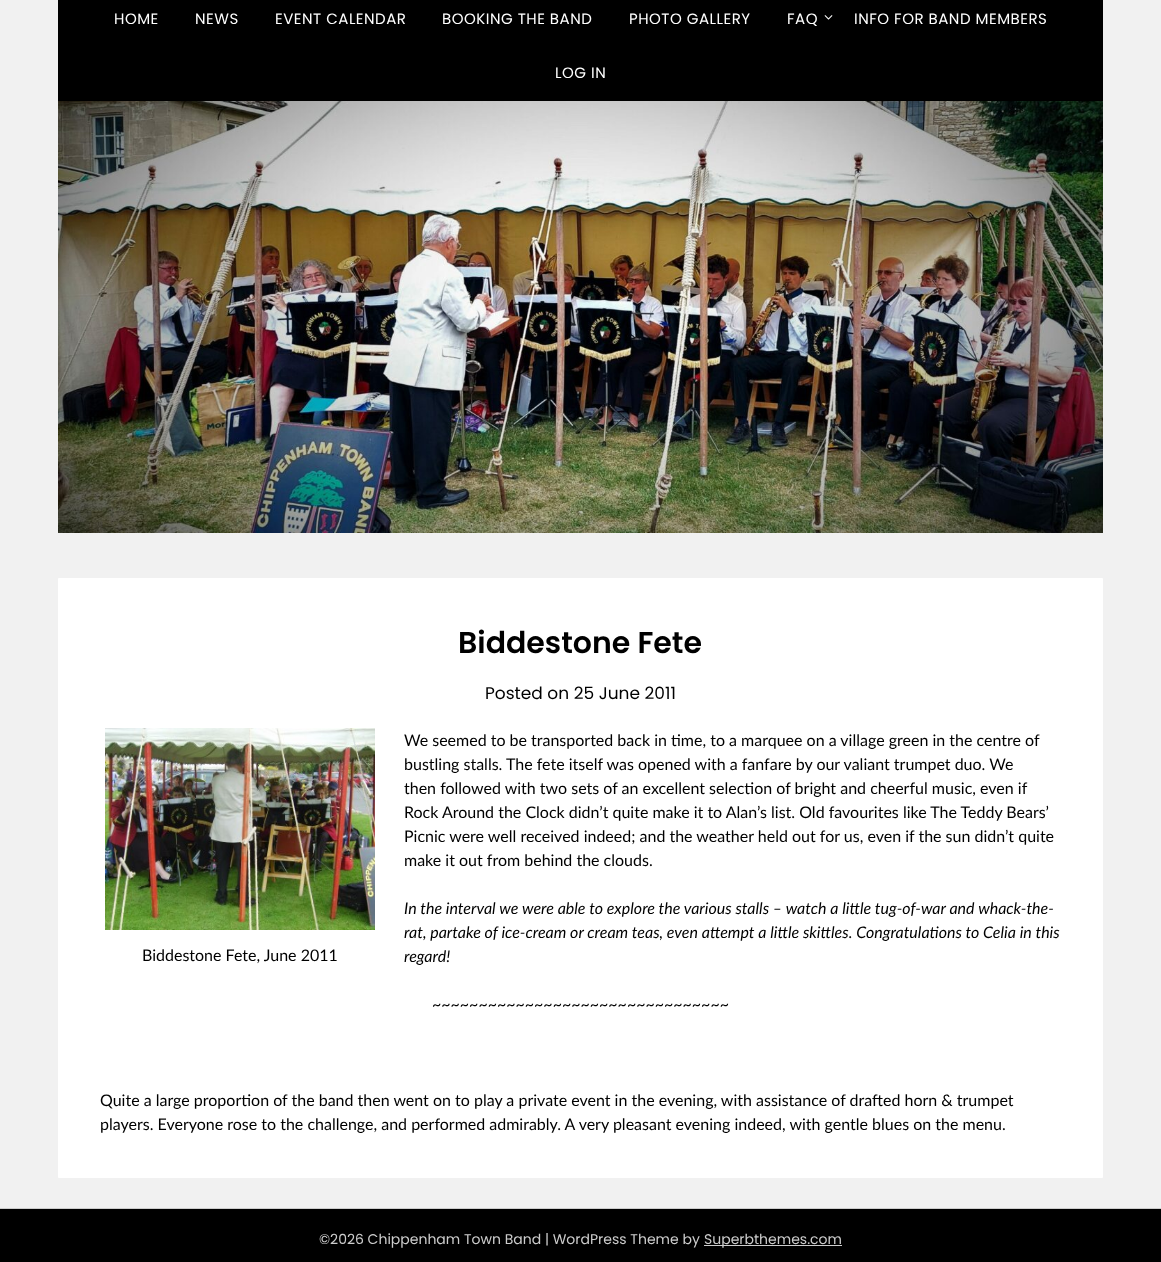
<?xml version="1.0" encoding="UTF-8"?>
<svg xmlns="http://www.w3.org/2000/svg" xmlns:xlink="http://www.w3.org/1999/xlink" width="1161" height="1262">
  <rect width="100%" height="100%" fill="#f1f1f1" />
  <rect x="58" width="1045" height="101" fill="#000000" />
  <image x="824" y="15" width="9" height="5" xlink:href="image1.png" />
  <image x="58" y="101" width="1045" height="432" xlink:href="image2.png" />
  <rect x="58" y="578" width="1045" height="600" rx="1" fill="#ffffff" />
  <image x="105" y="728" width="270" height="202" xlink:href="image3.png" />
  <rect y="1209" width="1161" height="53" fill="#000000" />
  <rect y="1208" width="1161" height="1" fill="#cccccc" />
  <rect x="704" y="1245" width="138" height="1" fill="#cccccc" />
  <text x="114" y="24" style="font-family: Poppins; font-size: 15px; letter-spacing: 0.5px; fill: #ffffff">HOME</text>
  <text x="195" y="24" style="font-family: Poppins; font-size: 15px; letter-spacing: 0.5px; fill: #ffffff">NEWS</text>
  <text x="275" y="24" style="font-family: Poppins; font-size: 15px; letter-spacing: 0.5px; fill: #ffffff">EVENT CALENDAR</text>
  <text x="442" y="24" style="font-family: Poppins; font-size: 15px; letter-spacing: 0.5px; fill: #ffffff">BOOKING THE BAND</text>
  <text x="629" y="24" style="font-family: Poppins; font-size: 15px; letter-spacing: 0.5px; fill: #ffffff">PHOTO GALLERY</text>
  <text x="787" y="24" style="font-family: Poppins; font-size: 15px; letter-spacing: 0.5px; fill: #ffffff">FAQ</text>
  <text x="854" y="24" style="font-family: Poppins; font-size: 15px; letter-spacing: 0.5px; fill: #ffffff">INFO FOR BAND MEMBERS</text>
  <text x="555" y="78" style="font-family: Poppins; font-size: 15px; letter-spacing: 0.5px; fill: #ffffff">LOG IN</text>
  <text x="458" y="653" style="font-family: Poppins; font-size: 30px; font-weight: 600; fill: #000000">Biddestone Fete</text>
  <text x="485" y="699" style="font-family: Poppins; font-size: 17px; fill: #000000">Posted on 25 June 2011</text>
  <text x="404" y="746" style="font-family: Lato; font-size: 16px; fill: #000000">We seemed to be transported back in time, to a marquee on a village green in the centre of</text>
  <text x="404" y="770" style="font-family: Lato; font-size: 16px; fill: #000000">bustling stalls. The fete itself was opened with a fanfare by our valiant trumpet duo. We</text>
  <text x="404" y="794" style="font-family: Lato; font-size: 16px; fill: #000000">then followed with two sets of an excellent selection of bright and cheerful music, even if</text>
  <text x="404" y="818" style="font-family: Lato; font-size: 16px; fill: #000000">Rock Around the Clock didn’t quite make it to Alan’s list. Old favourites like The Teddy Bears’</text>
  <text x="404" y="842" style="font-family: Lato; font-size: 16px; fill: #000000">Picnic were well received indeed; and the weather held out for us, even if the sun didn’t quite</text>
  <text x="404" y="866" style="font-family: Lato; font-size: 16px; fill: #000000">make it out from behind the clouds.</text>
  <text x="142" y="961" style="font-family: Lato; font-size: 16px; fill: #000000">Biddestone Fete, June 2011</text>
  <text x="404" y="914" style="font-family: Lato; font-size: 16px; font-style: italic; fill: #000000">In the interval we were able to explore the various stalls – watch a little tug-of-war and whack-the-</text>
  <text x="404" y="938" style="font-family: Lato; font-size: 16px; font-style: italic; fill: #000000">rat, partake of ice-cream or cream teas, even attempt a little skittles. Congratulations to Celia in this</text>
  <text x="404" y="962" style="font-family: Lato; font-size: 16px; font-style: italic; fill: #000000">regard!</text>
  <text x="432" y="1010" style="font-family: Lato; font-size: 16px; fill: #000000">~~~~~~~~~~~~~~~~~~~~~~~~~~~~~~~~</text>
  <text x="100" y="1106" style="font-family: Lato; font-size: 16px; fill: #000000">Quite a large proportion of the band then went on to play a private event in the evening, with assistance of drafted horn &amp; trumpet</text>
  <text x="100" y="1130" style="font-family: Lato; font-size: 16px; fill: #000000">players. Everyone rose to the challenge, and performed admirably. A very pleasant evening indeed, with gentle blues on the menu.</text>
  <text x="319" y="1244" style="font-family: Poppins; font-size: 14px; fill: #cccccc">©2026 Chippenham Town Band | WordPress Theme by</text>
  <text x="704" y="1244" style="font-family: Poppins; font-size: 14px; fill: #cccccc">Superbthemes.com</text>
</svg>
